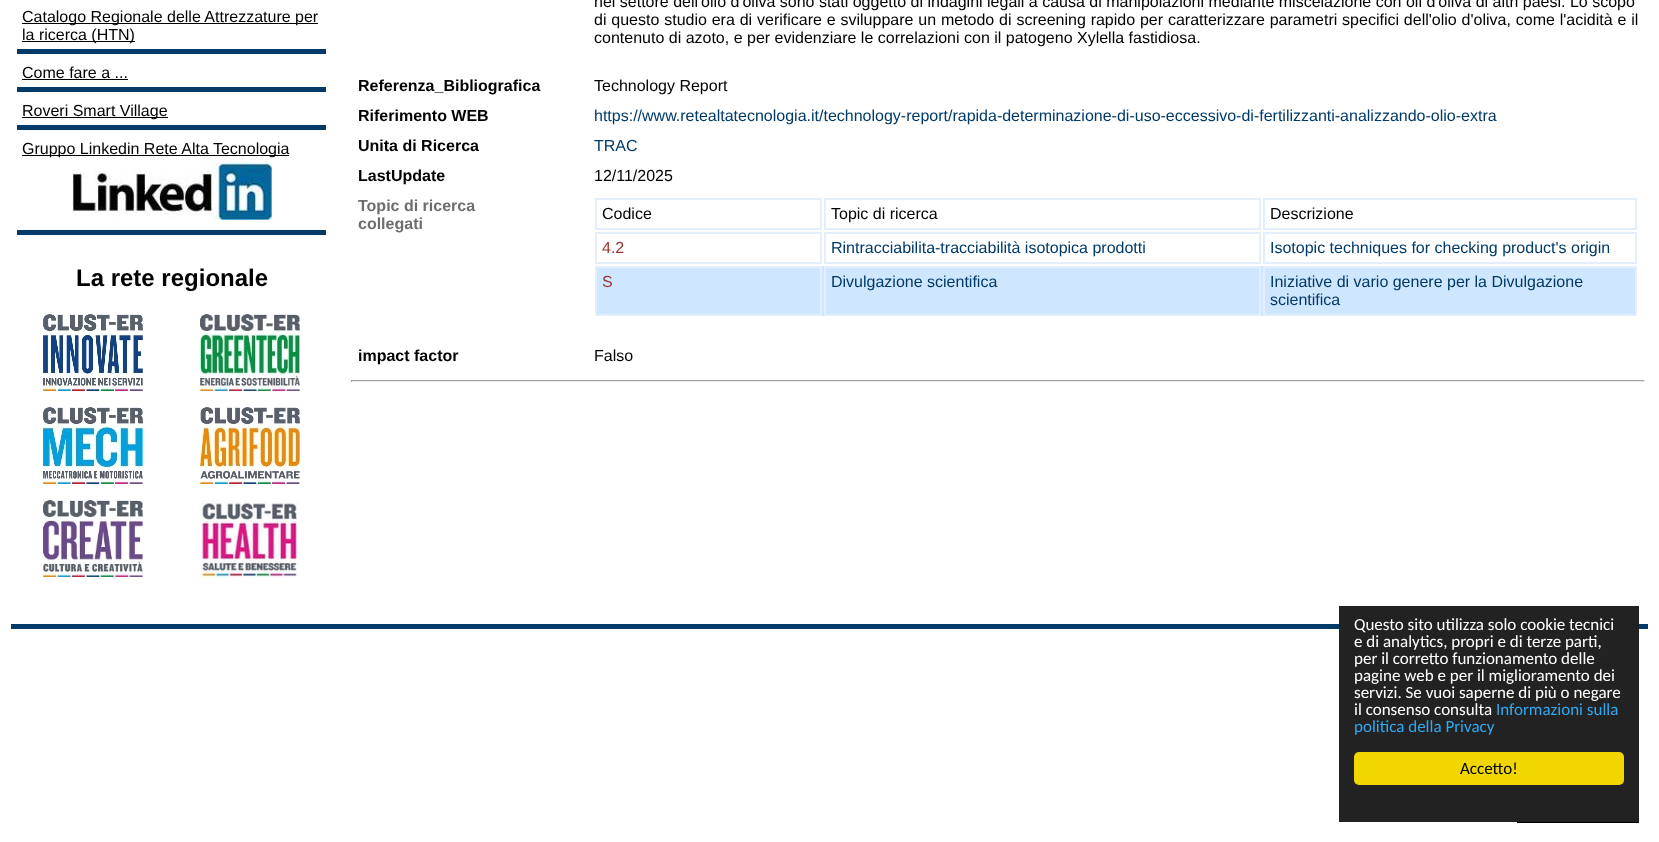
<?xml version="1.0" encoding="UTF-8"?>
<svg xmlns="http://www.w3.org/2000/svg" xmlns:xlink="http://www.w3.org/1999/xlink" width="1659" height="842">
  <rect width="100%" height="100%" fill="#ffffff" />
  <rect x="17" y="49" width="309" height="5" fill="#003a68" />
  <rect x="22" y="23" width="296" height="1" fill="#000000" />
  <rect x="22" y="41" width="113" height="1" fill="#000000" />
  <rect x="17" y="87" width="309" height="5" fill="#003a68" />
  <rect x="22" y="79" width="106" height="1" fill="#000000" />
  <rect x="17" y="125" width="309" height="5" fill="#003a68" />
  <rect x="22" y="117" width="146" height="1" fill="#000000" />
  <rect x="17" y="230" width="309" height="5" fill="#003a68" />
  <rect x="22" y="155" width="267" height="1" fill="#000000" />
  <image x="72" y="163" width="200" height="57" xlink:href="image1.png" />
  <image x="43" y="314" width="100" height="77" xlink:href="image2.png" />
  <image x="43" y="407" width="100" height="77" xlink:href="image3.png" />
  <image x="43" y="500" width="100" height="77" xlink:href="image4.png" />
  <image x="200" y="314" width="100" height="77" xlink:href="image5.png" />
  <image x="200" y="407" width="100" height="77" xlink:href="image6.png" />
  <image x="200" y="500" width="100" height="78" xlink:href="image7.png" />
  <rect x="596" y="199" width="225" height="30" fill="none" stroke="#e4eefd" stroke-width="2" />
  <rect x="825" y="199" width="435" height="30" fill="none" stroke="#e4eefd" stroke-width="2" />
  <rect x="1264" y="199" width="372" height="30" fill="none" stroke="#e4eefd" stroke-width="2" />
  <rect x="596" y="233" width="225" height="30" fill="none" stroke="#e4eefd" stroke-width="2" />
  <rect x="825" y="233" width="435" height="30" fill="none" stroke="#e4eefd" stroke-width="2" />
  <rect x="1264" y="233" width="372" height="30" fill="none" stroke="#e4eefd" stroke-width="2" />
  <rect x="597" y="266" width="1038" height="50" fill="#cee6fe" />
  <rect x="596" y="267" width="225" height="48" fill="none" stroke="#e4eefd" stroke-width="2" />
  <rect x="825" y="267" width="435" height="48" fill="none" stroke="#e4eefd" stroke-width="2" />
  <rect x="1264" y="267" width="372" height="48" fill="none" stroke="#e4eefd" stroke-width="2" />
  <rect x="351" y="380" width="1294" height="1" fill="#9f9f9f" />
  <rect x="1644" y="380" width="1" height="2" fill="#eeeeee" />
  <rect x="351" y="381" width="1294" height="1" fill="#eeeeee" />
  <rect x="351" y="380" width="1" height="2" fill="#9f9f9f" />
  <rect x="11" y="624" width="1637" height="5" fill="#003a68" />
  <rect x="1517" y="822" width="122" height="1" fill="#000000" />
  <rect x="1339" y="606" width="300" height="216" fill="#222222" />
  <rect x="1354" y="752" width="270" height="33" rx="5" fill="#f1d600" />
  <text x="22" y="22" style="font-family: Liberation Sans; font-size: 16px; fill: #000000">Catalogo Regionale delle Attrezzature per</text>
  <text x="22" y="40" style="font-family: Liberation Sans; font-size: 16px; fill: #000000">la ricerca (HTN)</text>
  <text x="22" y="78" style="font-family: Liberation Sans; font-size: 16px; fill: #000000">Come fare a ...</text>
  <text x="22" y="116" style="font-family: Liberation Sans; font-size: 16px; fill: #000000">Roveri Smart Village</text>
  <text x="22" y="154" style="font-family: Liberation Sans; font-size: 16px; fill: #000000">Gruppo Linkedin Rete Alta Tecnologia</text>
  <text x="76" y="286" style="font-family: Liberation Sans; font-size: 24px; font-weight: bold; fill: #000000">La rete regionale</text>
  <text x="594" y="7" style="font-family: Liberation Sans; font-size: 16px; fill: #000000">nel settore dell'olio d'oliva sono stati oggetto di indagini legali a causa di manipolazioni mediante miscelazione con oli d'oliva di altri paesi. Lo scopo</text>
  <text x="594" y="25" word-spacing="0.4" style="font-family: Liberation Sans; font-size: 16px; fill: #000000">di questo studio era di verificare e sviluppare un metodo di screening rapido per caratterizzare parametri specifici dell'olio d'oliva, come l'acidità e il</text>
  <text x="594" y="43" style="font-family: Liberation Sans; font-size: 16px; fill: #000000">contenuto di azoto, e per evidenziare le correlazioni con il patogeno Xylella fastidiosa.</text>
  <text x="358" y="91" style="font-family: Liberation Sans; font-size: 16px; font-weight: bold; fill: #000000">Referenza_Bibliografica</text>
  <text x="594" y="91" style="font-family: Liberation Sans; font-size: 16px; fill: #000000">Technology Report</text>
  <text x="358" y="121" style="font-family: Liberation Sans; font-size: 16px; font-weight: bold; fill: #000000">Riferimento WEB</text>
  <text x="594" y="121" style="font-family: Liberation Sans; font-size: 16px; fill: #003a68">https://www.retealtatecnologia.it/technology-report/rapida-determinazione-di-uso-eccessivo-di-fertilizzanti-analizzando-olio-extra</text>
  <text x="358" y="151" style="font-family: Liberation Sans; font-size: 16px; font-weight: bold; fill: #000000">Unita di Ricerca</text>
  <text x="594" y="151" style="font-family: Liberation Sans; font-size: 16px; fill: #003a68">TRAC</text>
  <text x="358" y="181" style="font-family: Liberation Sans; font-size: 16px; font-weight: bold; fill: #000000">LastUpdate</text>
  <text x="594" y="181" style="font-family: Liberation Sans; font-size: 16px; fill: #000000">12/11/2025</text>
  <text x="358" y="211" style="font-family: Liberation Sans; font-size: 16px; font-weight: bold; fill: #6d6d6d">Topic di ricerca</text>
  <text x="358" y="229" style="font-family: Liberation Sans; font-size: 16px; font-weight: bold; fill: #6d6d6d">collegati</text>
  <text x="602" y="219" style="font-family: Liberation Sans; font-size: 16px; fill: #000000">Codice</text>
  <text x="831" y="219" style="font-family: Liberation Sans; font-size: 16px; fill: #000000">Topic di ricerca</text>
  <text x="1270" y="219" style="font-family: Liberation Sans; font-size: 16px; fill: #000000">Descrizione</text>
  <text x="602" y="253" style="font-family: Liberation Sans; font-size: 16px; fill: #993333">4.2</text>
  <text x="831" y="253" style="font-family: Liberation Sans; font-size: 16px; fill: #003a68">Rintracciabilita-tracciabilità isotopica prodotti</text>
  <text x="1270" y="253" style="font-family: Liberation Sans; font-size: 16px; fill: #003a68">Isotopic techniques for checking product's origin</text>
  <text x="602" y="287" style="font-family: Liberation Sans; font-size: 16px; fill: #993333">S</text>
  <text x="831" y="287" style="font-family: Liberation Sans; font-size: 16px; fill: #003a68">Divulgazione scientifica</text>
  <text x="1270" y="287" style="font-family: Liberation Sans; font-size: 16px; fill: #003a68">Iniziative di vario genere per la Divulgazione</text>
  <text x="1270" y="305" style="font-family: Liberation Sans; font-size: 16px; fill: #003a68">scientifica</text>
  <text x="358" y="361" style="font-family: Liberation Sans; font-size: 16px; font-weight: bold; fill: #000000">impact factor</text>
  <text x="594" y="361" style="font-family: Liberation Sans; font-size: 16px; fill: #000000">Falso</text>
  <text x="1354" y="630" style="font-family: Carlito; font-size: 17px; fill: #ffffff">Questo sito utilizza solo cookie tecnici</text>
  <text x="1354" y="647" style="font-family: Carlito; font-size: 17px; fill: #ffffff">e di analytics, propri e di terze parti,</text>
  <text x="1354" y="664" style="font-family: Carlito; font-size: 17px; fill: #ffffff">per il corretto funzionamento delle</text>
  <text x="1354" y="681" style="font-family: Carlito; font-size: 17px; fill: #ffffff">pagine web e per il miglioramento dei</text>
  <text x="1354" y="698" style="font-family: Carlito; font-size: 17px; fill: #ffffff">servizi. Se vuoi saperne di più o negare</text>
  <text x="1354" y="715" style="font-family: Carlito; font-size: 17px; fill: #ffffff">il consenso consulta</text>
  <text x="1496" y="715" style="font-family: Carlito; font-size: 17px; fill: #31a8f0">Informazioni sulla</text>
  <text x="1354" y="732" style="font-family: Carlito; font-size: 17px; fill: #31a8f0">politica della Privacy</text>
  <text x="1460" y="774" style="font-family: Carlito; font-size: 17px; fill: #000000">Accetto!</text>
</svg>
